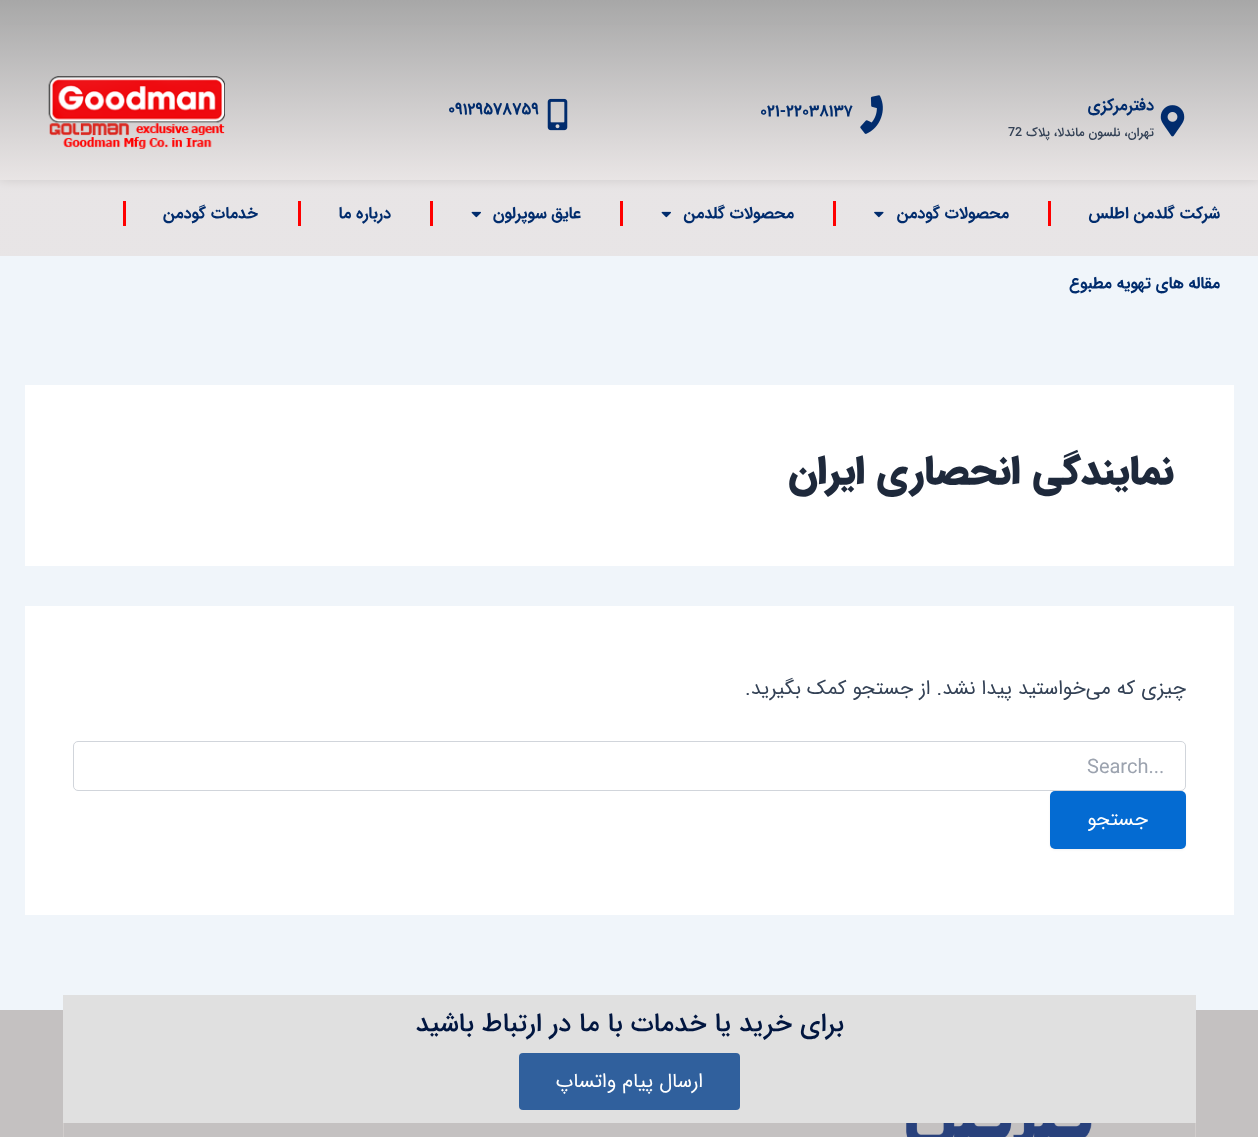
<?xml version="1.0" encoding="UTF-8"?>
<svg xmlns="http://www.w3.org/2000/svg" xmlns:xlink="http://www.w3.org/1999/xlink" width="1258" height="1137">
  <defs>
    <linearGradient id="g1" gradientUnits="userSpaceOnUse" x1="629" y1="25" x2="629" y2="180"><stop offset="0" stop-color="#e1e7ec" /><stop offset="1" stop-color="#ffffff" /></linearGradient>
    <linearGradient id="g2" gradientUnits="userSpaceOnUse" x1="629" y1="0" x2="629" y2="256"><stop offset="0" stop-color="#a7a7a7" /><stop offset="0.73" stop-color="#e6e1e1" stop-opacity="0.81" /></linearGradient>
  </defs>
  <rect width="100%" height="100%" fill="#f0f5fa" />
  <rect y="25" width="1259" height="155" fill="#000000" fill-opacity="0.5" filter="blur(6px)" />
  <rect y="25" width="1258" height="155" fill="url(#g1)" />
  <rect width="1258" height="256" fill="url(#g2)" />
  <image x="1160" y="105" width="25" height="32" xlink:href="image1.png" />
  <image x="860" y="95" width="23" height="39" xlink:href="image2.png" />
  <image x="547" y="98" width="21" height="33" xlink:href="image3.png" />
  <image x="48" y="76" width="177" height="73" xlink:href="image4.png" />
  <rect x="1048" y="201" width="3" height="25" fill="#ff0000" />
  <image x="874" y="211" width="10" height="7" xlink:href="image5.png" />
  <rect x="833" y="201" width="3" height="25" fill="#ff0000" />
  <image x="661" y="211" width="10" height="7" xlink:href="image6.png" />
  <rect x="620" y="201" width="3" height="25" fill="#ff0000" />
  <image x="471" y="211" width="10" height="7" xlink:href="image6.png" />
  <rect x="430" y="201" width="3" height="25" fill="#ff0000" />
  <rect x="298" y="201" width="3" height="25" fill="#ff0000" />
  <rect x="123" y="201" width="3" height="25" fill="#ff0000" />
  <rect x="25" y="385" width="1209" height="181" fill="#ffffff" />
  <rect x="25" y="606" width="1209" height="309" fill="#ffffff" />
  <rect x="73.5" y="741.5" width="1112" height="49" rx="4.5" fill="none" stroke="#d1d5db" />
  <rect x="1050" y="793" width="136" height="57" rx="5" fill="#000000" fill-opacity="0.05" filter="blur(1px)" />
  <rect x="1050" y="791" width="136" height="58" rx="5" fill="#046bd2" />
  <rect y="1010" width="1258" height="127" fill="#c4c1c1" />
  <rect x="1195" y="1123" width="1" height="14" fill="#d1cdcc" />
  <rect x="63" y="1123" width="1" height="14" fill="#d1cdcc" />
  <image x="906" y="1123" width="186" height="14" xlink:href="image7.png" />
  <rect x="63" y="995" width="1133" height="128" fill="#e0e0e0" />
  <rect x="519" y="1053" width="221" height="57" rx="4" fill="#30609d" />
  <text x="1154" y="110" style="font-family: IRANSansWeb; font-size: 16.25px; font-weight: bold; direction: rtl; fill: #012c6d">دفترمرکزی</text>
  <text x="1154" y="136" style="font-family: IRANSansWeb; font-size: 12.5px; font-weight: 500; direction: rtl; fill: #334155">تهران، نلسون ماندلا، پلاک</text>
  <text x="1008" y="136" style="font-family: IRANSansWeb; font-size: 12.5px; font-weight: 500; fill: #334155">72</text>
  <text x="760" y="116" style="font-family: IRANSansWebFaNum; font-size: 16.25px; font-weight: bold; fill: #012c6d">021-22038137</text>
  <text x="448" y="114" style="font-family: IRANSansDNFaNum; font-size: 16.25px; font-weight: bold; fill: #012c6d">09129578759</text>
  <text x="1220" y="218" style="font-family: IRANSansWeb; font-size: 16.25px; font-weight: bold; direction: rtl; fill: #012c6d">شرکت گلدمن اطلس</text>
  <text x="1009" y="218" style="font-family: IRANSansWeb; font-size: 16.25px; font-weight: bold; direction: rtl; fill: #012c6d">محصولات گودمن</text>
  <text x="794" y="218" style="font-family: IRANSansWeb; font-size: 16.25px; font-weight: bold; direction: rtl; fill: #012c6d">محصولات گلدمن</text>
  <text x="581" y="218" style="font-family: IRANSansWeb; font-size: 16.25px; font-weight: bold; direction: rtl; fill: #012c6d">عایق سوپرلون</text>
  <text x="391" y="218" style="font-family: IRANSansWeb; font-size: 16.25px; font-weight: bold; direction: rtl; fill: #012c6d">درباره ما</text>
  <text x="258" y="218" style="font-family: IRANSansWeb; font-size: 16.25px; font-weight: bold; direction: rtl; fill: #012c6d">خدمات گودمن</text>
  <text x="1220" y="288" style="font-family: IRANSansWeb; font-size: 16.25px; font-weight: bold; direction: rtl; fill: #012c6d">مقاله های تهویه مطبوع</text>
  <text x="1174" y="483" style="font-family: IRANSansWeb; font-size: 40px; font-weight: 900; direction: rtl; fill: #1e293b">نمایندگی انحصاری ایران</text>
  <text x="1186" y="694" style="font-family: IRANSansWeb; font-size: 20px; direction: rtl; fill: #334155">چیزی که می‌خواستید پیدا نشد. از جستجو کمک بگیرید.</text>
  <text x="1087" y="773" style="font-family: Roboto; font-size: 20px; fill: #9ca3af">Search...</text>
  <text x="1148" y="825" style="font-family: IRANSansWeb; font-size: 20px; direction: rtl; fill: #ffffff">جستجو</text>
  <text x="844" y="1031" style="font-family: IRANSansWeb; font-size: 26.25px; font-weight: 500; direction: rtl; fill: #011640">برای خرید یا خدمات با ما در ارتباط باشید</text>
  <text x="703" y="1087" style="font-family: IRANSansWeb; font-size: 20px; direction: rtl; fill: #ffffff">ارسال پیام واتساپ</text>
</svg>
